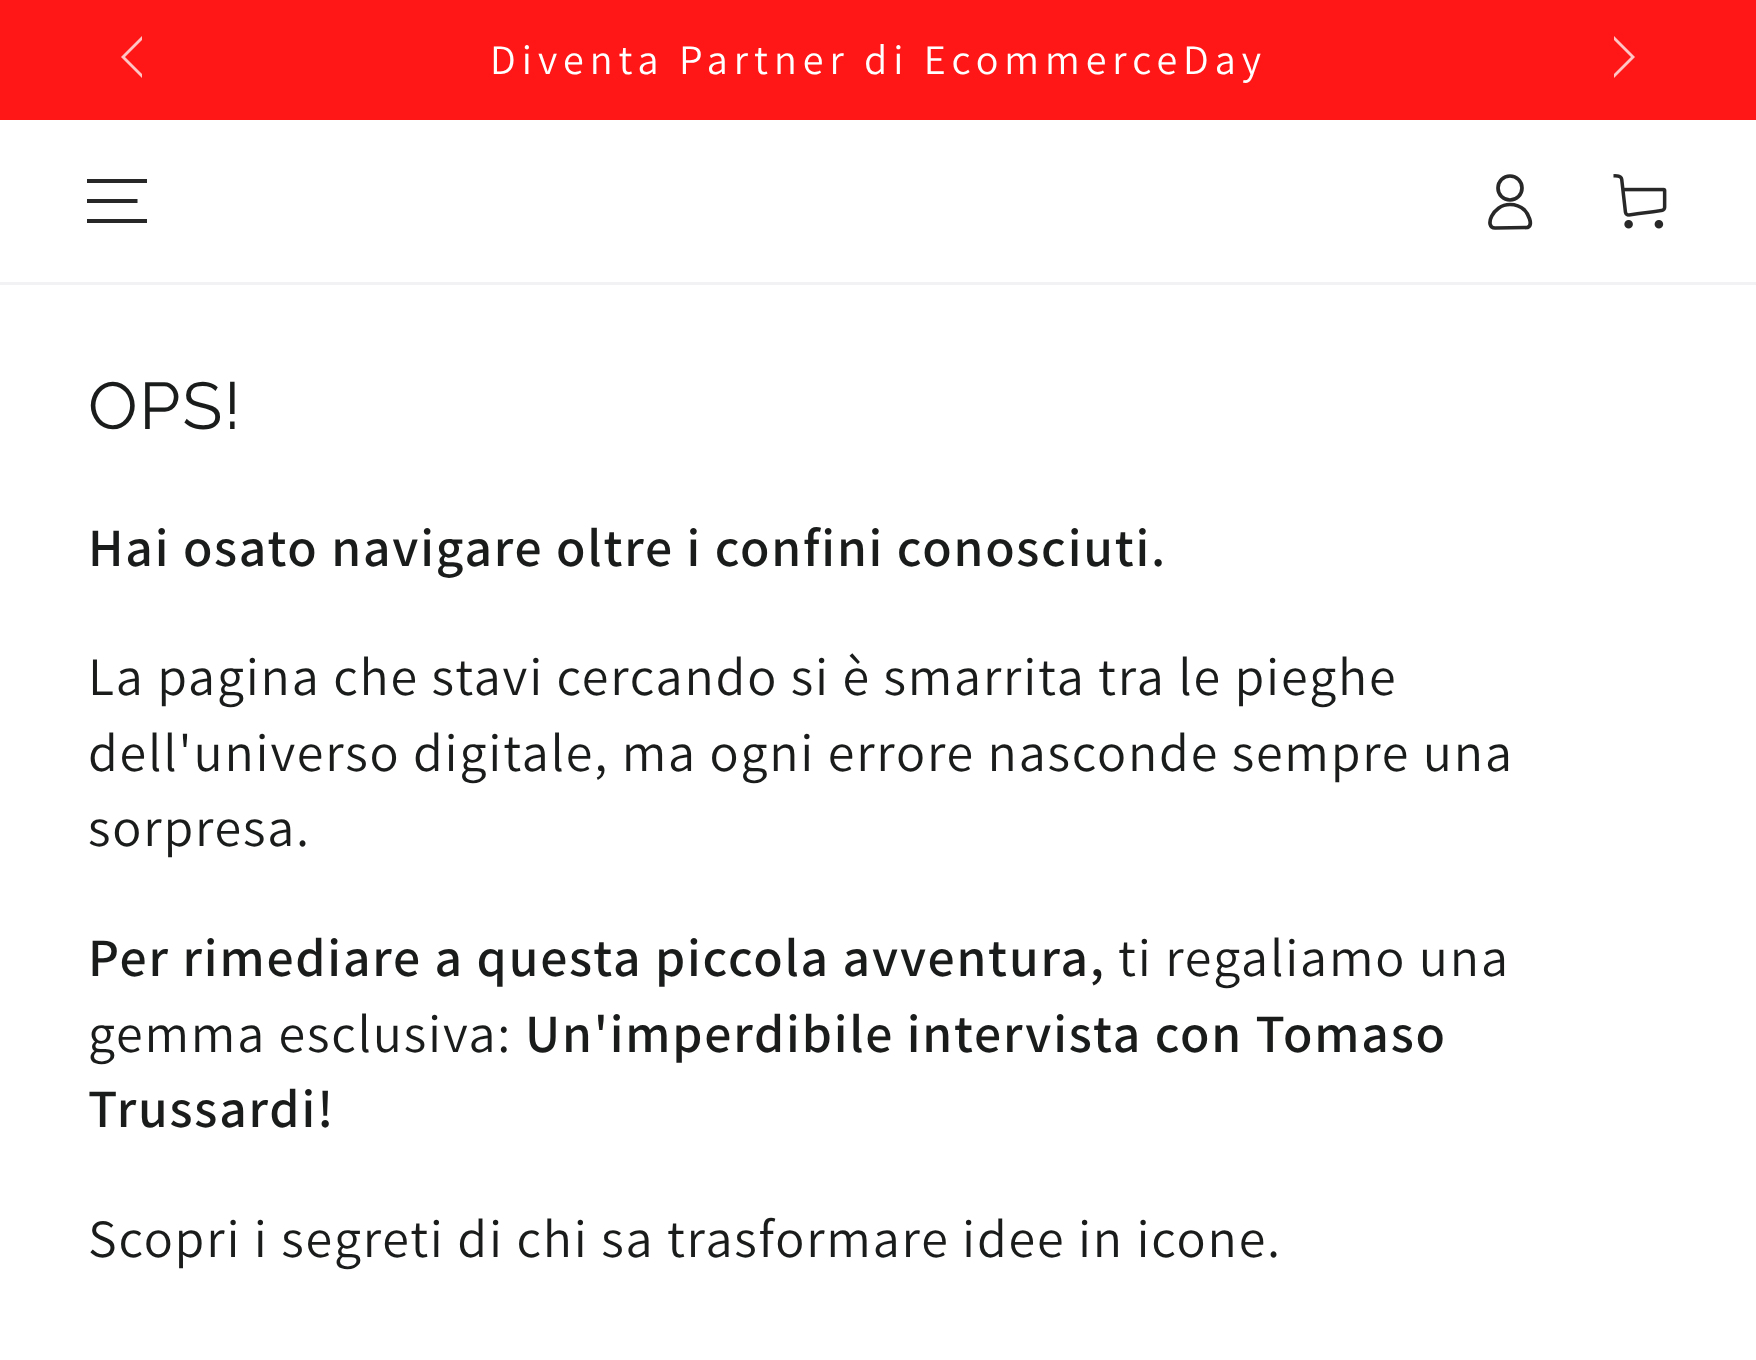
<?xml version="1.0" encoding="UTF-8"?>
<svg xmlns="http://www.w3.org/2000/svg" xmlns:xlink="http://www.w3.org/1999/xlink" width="1756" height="1360">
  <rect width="100%" height="100%" fill="#ffffff" />
  <rect width="1756" height="120" fill="#ff1616" />
  <path d="M 121 57 l 21 21 v -4 l -17 -17 l 17 -17 v -4 z" fill="#ffc5c5" fill-rule="evenodd" />
  <path d="M 1635 57 l -21 21 v -4 l 17 -17 l -17 -17 v -4 z" fill="#ffc5c5" fill-rule="evenodd" />
  <rect y="282" width="1756" height="3" fill="#f2f2f4" />
  <path d="M 87 221 h 60 m -60 -20 h 50.5 m -50.5 -20 h 60" fill="none" stroke="#282828" stroke-width="3.8" />
  <path d="M 1510 204.5 c -18 0 -26 23.5 -15 23.5 l 32.5 -0.5 c 6.5 -2.5 0 -14.5 -3 -17.5 c -4 -3.5 -9 -5.5 -14.5 -5.5 z" fill="none" stroke="#282828" stroke-width="3.7" />
  <circle cx="1510" cy="188" r="12" fill="none" stroke="#282828" stroke-width="3.7" />
  <image x="1613" y="174" width="54" height="55" xlink:href="image1.png" />
  <text x="490" y="74" style="font-family: Assistant; font-size: 42px; letter-spacing: 6px; fill: #ffffff">Diventa Partner di EcommerceDay</text>
  <text x="88" y="429" style="font-family: Raleway; font-size: 66px; letter-spacing: 1.8px; fill: #1a1b1b">OPS!</text>
  <text x="88" y="566" style="font-family: Assistant; font-size: 54px; font-weight: 600; letter-spacing: 1.8px; fill: #1a1b1b">Hai osato navigare oltre i confini conosciuti.</text>
  <text x="88" y="695" style="font-family: Assistant; font-size: 54px; letter-spacing: 1.8px; fill: #1a1b1b">La pagina che stavi cercando si è smarrita tra le pieghe</text>
  <text x="88" y="771" style="font-family: Assistant; font-size: 54px; letter-spacing: 1.8px; fill: #1a1b1b">dell'universo digitale, ma ogni errore nasconde sempre una</text>
  <text x="88" y="846" style="font-family: Assistant; font-size: 54px; letter-spacing: 1.8px; fill: #1a1b1b">sorpresa.</text>
  <text x="88" y="976" style="font-family: Assistant; font-size: 54px; font-weight: 600; letter-spacing: 1.8px; fill: #1a1b1b">Per rimediare a questa piccola avventura,</text>
  <text x="1118" y="976" style="font-family: Assistant; font-size: 54px; letter-spacing: 1.8px; fill: #1a1b1b">ti regaliamo una</text>
  <text x="88" y="1052" style="font-family: Assistant; font-size: 54px; letter-spacing: 1.8px; fill: #1a1b1b">gemma esclusiva:</text>
  <text x="525" y="1052" style="font-family: Assistant; font-size: 54px; font-weight: 600; letter-spacing: 1.8px; fill: #1a1b1b">Un'imperdibile intervista con Tomaso</text>
  <text x="88" y="1127" style="font-family: Assistant; font-size: 54px; font-weight: 600; letter-spacing: 1.8px; fill: #1a1b1b">Trussardi!</text>
  <text x="88" y="1257" style="font-family: Assistant; font-size: 54px; letter-spacing: 1.8px; fill: #1a1b1b">Scopri i segreti di chi sa trasformare idee in icone.</text>
</svg>
